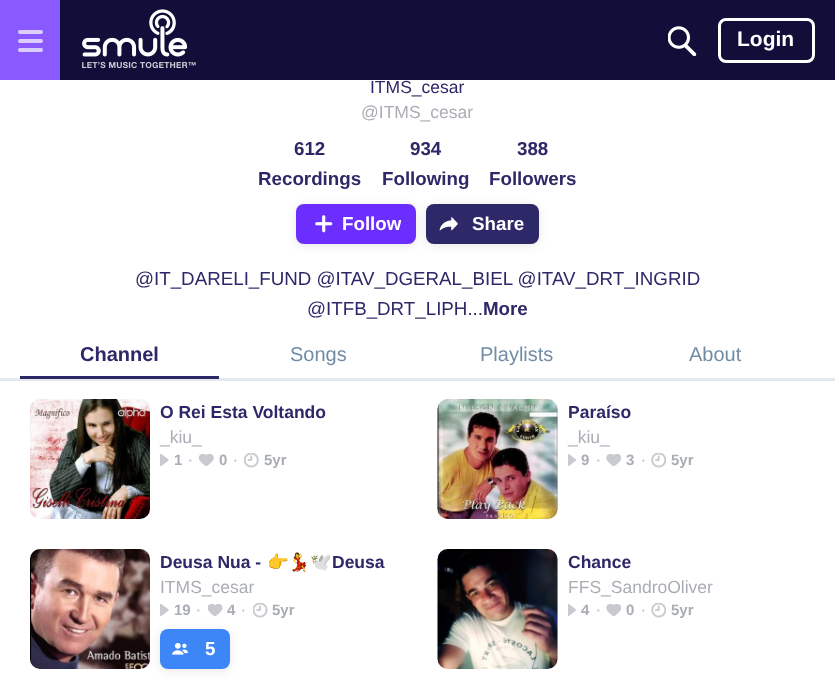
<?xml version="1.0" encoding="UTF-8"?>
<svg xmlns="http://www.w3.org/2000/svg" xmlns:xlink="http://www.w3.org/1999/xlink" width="835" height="694">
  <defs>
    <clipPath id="clip1"><rect x="311" y="209" width="90" height="30" /></clipPath>
  </defs>
  <rect width="100%" height="100%" fill="#ffffff" />
  <rect x="60" width="775" height="80" fill="#110e39" />
  <rect width="60" height="80" fill="#8a59ff" />
  <rect x="18" y="39" width="25" height="4" rx="2" fill="#dccdff" />
  <rect x="18" y="30" width="25" height="4" rx="2" fill="#dccdff" />
  <rect x="18" y="48" width="25" height="4" rx="2" fill="#dccdff" />
  <image x="82" y="9" width="114" height="60" xlink:href="image1.png" />
  <image x="668" y="26" width="29" height="30" xlink:href="image2.png" />
  <rect x="719.5" y="19.5" width="94" height="42" rx="6.5" fill="none" stroke="#ffffff" stroke-width="3" />
  <rect x="296" y="206" width="120" height="40" rx="8" fill="#1f2021" fill-opacity="0.1" filter="blur(5px)" />
  <rect x="296" y="204" width="120" height="40" rx="8" fill="#6c2eff" />
  <image x="315" y="215" width="18" height="18" xlink:href="image3.png" />
  <rect x="426" y="206" width="113" height="40" rx="8" fill="#1f2021" fill-opacity="0.1" filter="blur(5px)" />
  <rect x="426" y="204" width="113" height="40" rx="8" fill="#2d2867" />
  <image x="439" y="217" width="19" height="14" xlink:href="image4.png" />
  <rect y="378" width="835" height="3" fill="#e4e9ee" />
  <rect x="20" y="376" width="199" height="3" fill="#2d2867" />
  <rect x="30" y="399" width="120" height="120" rx="10" fill="#f0f2f4" />
  <image x="30" y="399" width="120" height="120" xlink:href="image5.png" />
  <image x="160" y="454" width="9" height="12" xlink:href="image6.png" />
  <image x="199" y="454" width="15" height="12" xlink:href="image7.png" />
  <image x="244" y="453" width="15" height="15" xlink:href="image8.png" />
  <rect x="438" y="399" width="120" height="120" rx="10" fill="#f0f2f4" />
  <image x="437" y="399" width="121" height="120" xlink:href="image9.png" />
  <image x="568" y="454" width="8" height="12" xlink:href="image10.png" />
  <image x="606" y="454" width="15" height="12" xlink:href="image11.png" />
  <image x="651" y="453" width="15" height="15" xlink:href="image12.png" />
  <rect x="30" y="549" width="120" height="120" rx="10" fill="#f0f2f4" />
  <image x="30" y="549" width="120" height="120" xlink:href="image13.png" />
  <image x="160" y="604" width="9" height="12" xlink:href="image6.png" />
  <image x="208" y="604" width="15" height="12" xlink:href="image14.png" />
  <image x="253" y="603" width="15" height="15" xlink:href="image15.png" />
  <rect x="160" y="631" width="70" height="40" rx="8" fill="#1f2021" fill-opacity="0.1" filter="blur(5px)" />
  <rect x="160" y="629" width="70" height="40" rx="8" fill="#3c86f7" />
  <image x="172" y="643" width="16" height="12" xlink:href="image16.png" />
  <rect x="438" y="549" width="120" height="120" rx="10" fill="#f0f2f4" />
  <image x="437" y="549" width="121" height="120" xlink:href="image17.png" />
  <image x="568" y="604" width="8" height="12" xlink:href="image10.png" />
  <image x="606" y="604" width="15" height="12" xlink:href="image11.png" />
  <image x="651" y="603" width="15" height="15" xlink:href="image12.png" />
  <text x="737" y="46" style="font-family: Liberation Sans; font-size: 21px; font-weight: bold; fill: #ffffff">Login</text>
  <text x="370" y="93" style="font-family: Liberation Sans; font-size: 17.5px; fill: #2d2867">ITMS_cesar</text>
  <text x="361" y="118" style="font-family: Liberation Sans; font-size: 17.5px; fill: #aaadb4">@ITMS_cesar</text>
  <text x="294" y="155" style="font-family: Liberation Sans; font-size: 18.75px; font-weight: bold; fill: #2d2867">612</text>
  <text x="258" y="185" style="font-family: Liberation Sans; font-size: 18.75px; font-weight: bold; fill: #2d2867">Recordings</text>
  <text x="410" y="155" style="font-family: Liberation Sans; font-size: 18.75px; font-weight: bold; fill: #2d2867">934</text>
  <text x="382" y="185" style="font-family: Liberation Sans; font-size: 18.75px; font-weight: bold; fill: #2d2867">Following</text>
  <text x="517" y="155" style="font-family: Liberation Sans; font-size: 18.75px; font-weight: bold; fill: #2d2867">388</text>
  <text x="489" y="185" style="font-family: Liberation Sans; font-size: 18.75px; font-weight: bold; fill: #2d2867">Followers</text>
  <g clip-path="url(#clip1)">
    <text x="342" y="230" style="font-family: Liberation Sans; font-size: 18.75px; font-weight: bold; fill: #ffffff">Follow</text>
  </g>
  <text x="472" y="230" style="font-family: Liberation Sans; font-size: 18.75px; font-weight: bold; fill: #ffffff">Share</text>
  <text x="135" y="285" style="font-family: Liberation Sans; font-size: 18.75px; fill: #2d2867">@IT_DARELI_FUND @ITAV_DGERAL_BIEL @ITAV_DRT_INGRID</text>
  <text x="307" y="315" style="font-family: Liberation Sans; font-size: 18.75px; fill: #2d2867">@ITFB_DRT_LIPH...</text>
  <text x="483" y="315" style="font-family: Liberation Sans; font-size: 18.75px; font-weight: bold; fill: #2d2867">More</text>
  <text x="80" y="361" style="font-family: Liberation Sans; font-size: 20px; font-weight: bold; fill: #2d2867">Channel</text>
  <text x="290" y="361" style="font-family: Liberation Sans; font-size: 20px; fill: #728ca6">Songs</text>
  <text x="480" y="361" style="font-family: Liberation Sans; font-size: 20px; fill: #728ca6">Playlists</text>
  <text x="689" y="361" style="font-family: Liberation Sans; font-size: 20px; fill: #728ca6">About</text>
  <text x="160" y="418" style="font-family: Liberation Sans; font-size: 17.5px; font-weight: bold; fill: #2d2867">O Rei Esta Voltando</text>
  <text x="160" y="443" style="font-family: Liberation Sans; font-size: 17.5px; fill: #aaadb4">_kiu_</text>
  <text x="174" y="465" style="font-family: Liberation Sans; font-size: 15px; font-weight: bold; fill: #aaadb4">1</text>
  <text x="187" y="466" style="font-family: Liberation Sans; font-size: 20px; fill: #c8cacf">·</text>
  <text x="219" y="465" style="font-family: Liberation Sans; font-size: 15px; font-weight: bold; fill: #aaadb4">0</text>
  <text x="232" y="466" style="font-family: Liberation Sans; font-size: 20px; fill: #c8cacf">·</text>
  <text x="264" y="465" style="font-family: Liberation Sans; font-size: 15px; font-weight: bold; fill: #aaadb4">5yr</text>
  <text x="568" y="418" style="font-family: Liberation Sans; font-size: 17.5px; font-weight: bold; fill: #2d2867">Paraíso</text>
  <text x="568" y="443" style="font-family: Liberation Sans; font-size: 17.5px; fill: #aaadb4">_kiu_</text>
  <text x="581" y="465" style="font-family: Liberation Sans; font-size: 15px; font-weight: bold; fill: #aaadb4">9</text>
  <text x="595" y="466" style="font-family: Liberation Sans; font-size: 20px; fill: #c8cacf">·</text>
  <text x="626" y="465" style="font-family: Liberation Sans; font-size: 15px; font-weight: bold; fill: #aaadb4">3</text>
  <text x="640" y="466" style="font-family: Liberation Sans; font-size: 20px; fill: #c8cacf">·</text>
  <text x="671" y="465" style="font-family: Liberation Sans; font-size: 15px; font-weight: bold; fill: #aaadb4">5yr</text>
  <text x="160" y="568" style="font-family: Liberation Sans; font-size: 17.5px; font-weight: bold; fill: #2d2867">Deusa Nua -</text>
  <text x="267" y="568" style="font-family: Noto Color Emoji; font-size: 17.5px; font-weight: bold; fill: #2d2867">👉💃🕊</text>
  <text x="332" y="568" style="font-family: Liberation Sans; font-size: 17.5px; font-weight: bold; fill: #2d2867">Deusa</text>
  <text x="160" y="593" style="font-family: Liberation Sans; font-size: 17.5px; fill: #aaadb4">ITMS_cesar</text>
  <text x="174" y="615" style="font-family: Liberation Sans; font-size: 15px; font-weight: bold; fill: #aaadb4">19</text>
  <text x="195" y="616" style="font-family: Liberation Sans; font-size: 20px; fill: #c8cacf">·</text>
  <text x="227" y="615" style="font-family: Liberation Sans; font-size: 15px; font-weight: bold; fill: #aaadb4">4</text>
  <text x="240" y="616" style="font-family: Liberation Sans; font-size: 20px; fill: #c8cacf">·</text>
  <text x="272" y="615" style="font-family: Liberation Sans; font-size: 15px; font-weight: bold; fill: #aaadb4">5yr</text>
  <text x="205" y="655" style="font-family: Liberation Sans; font-size: 18.75px; font-weight: bold; fill: #ffffff">5</text>
  <text x="568" y="568" style="font-family: Liberation Sans; font-size: 17.5px; font-weight: bold; fill: #2d2867">Chance</text>
  <text x="568" y="593" style="font-family: Liberation Sans; font-size: 17.5px; fill: #aaadb4">FFS_SandroOliver</text>
  <text x="581" y="615" style="font-family: Liberation Sans; font-size: 15px; font-weight: bold; fill: #aaadb4">4</text>
  <text x="595" y="616" style="font-family: Liberation Sans; font-size: 20px; fill: #c8cacf">·</text>
  <text x="626" y="615" style="font-family: Liberation Sans; font-size: 15px; font-weight: bold; fill: #aaadb4">0</text>
  <text x="640" y="616" style="font-family: Liberation Sans; font-size: 20px; fill: #c8cacf">·</text>
  <text x="671" y="615" style="font-family: Liberation Sans; font-size: 15px; font-weight: bold; fill: #aaadb4">5yr</text>
</svg>
